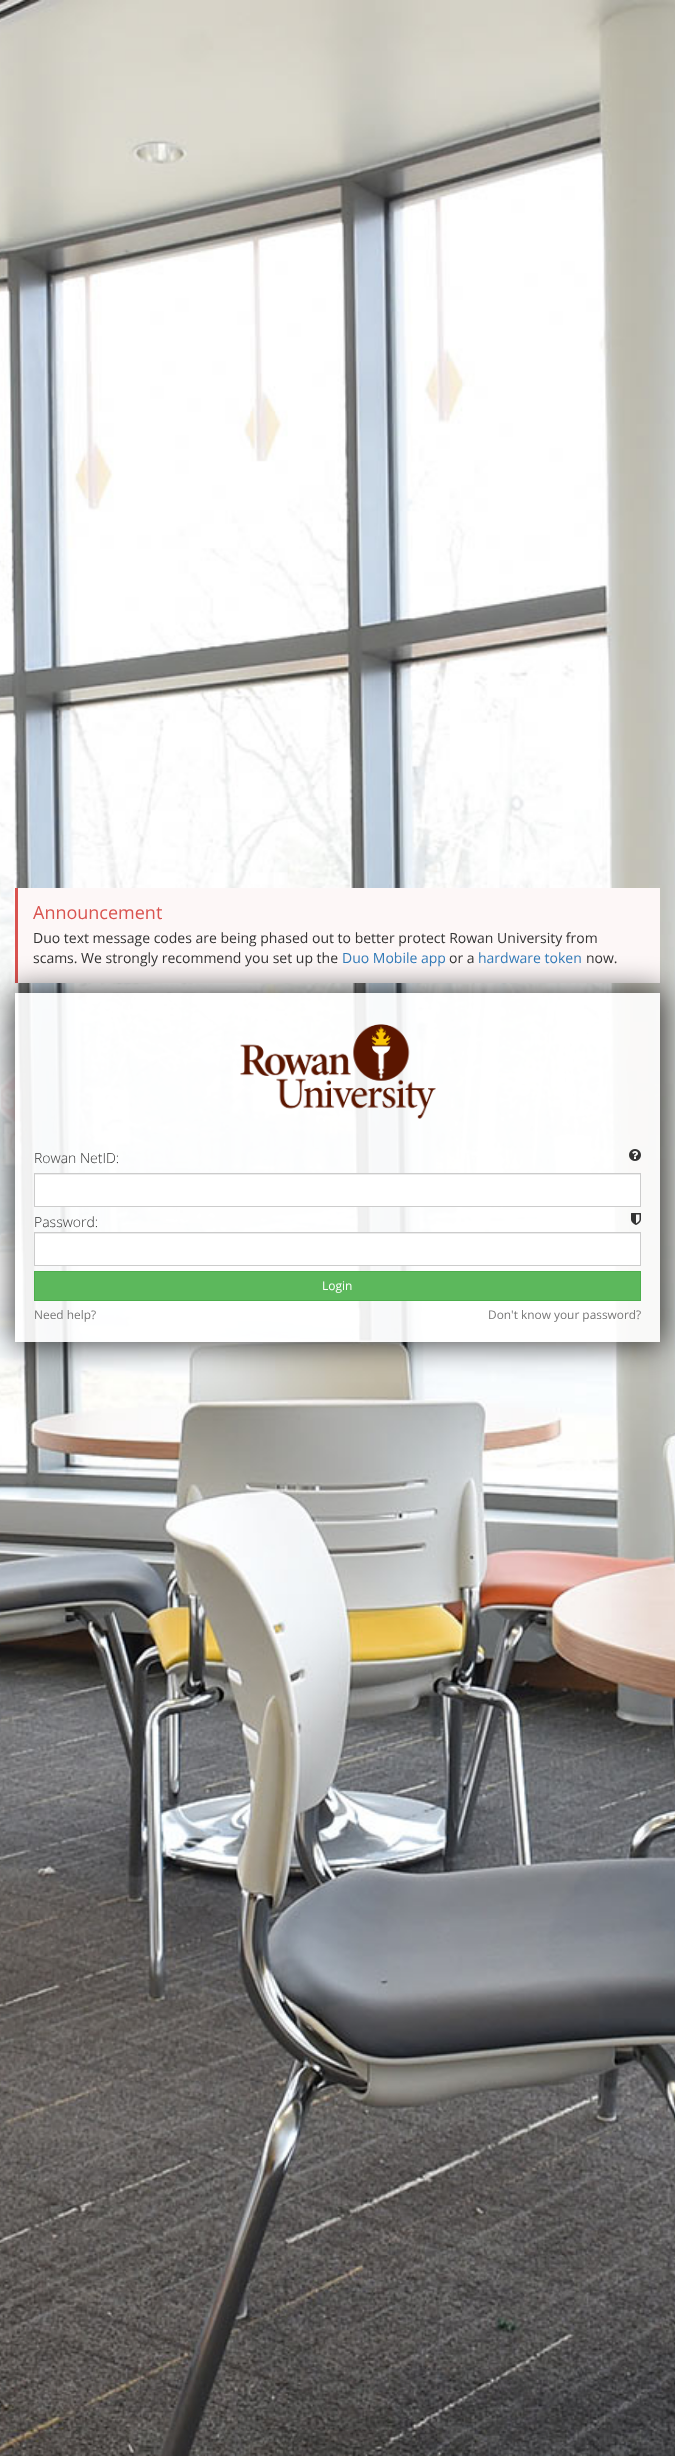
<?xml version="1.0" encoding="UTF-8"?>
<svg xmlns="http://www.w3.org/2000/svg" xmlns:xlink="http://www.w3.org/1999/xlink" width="675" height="2456">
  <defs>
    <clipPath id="clip1"><path d="M 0 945 h 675 v 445 h -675 z m 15 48 h 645 v 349 h -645 z" clip-rule="evenodd" /></clipPath>
  </defs>
  <rect width="100%" height="100%" fill="#ffffff" />
  <image x="0" y="0" width="675" height="2456" xlink:href="image1.png" />
  <rect x="18" y="888" width="642" height="95" fill="#fdf7f7" />
  <rect x="15" y="888" width="3" height="95" fill="#d9534f" />
  <g clip-path="url(#clip1)">
    <rect x="13" y="991" width="649" height="353" fill="#000000" fill-opacity="0.75" filter="blur(15px)" />
  </g>
  <rect x="15" y="993" width="645" height="349" fill="#ffffff" fill-opacity="0.9" />
  <image x="240" y="1024" width="196" height="95" xlink:href="image2.png" />
  <image x="629" y="1149" width="12" height="12" xlink:href="image3.png" />
  <rect x="35" y="1175" width="605" height="31" fill="#ffffff" />
  <rect x="35" y="1174" width="605" height="1" fill="#ececec" />
  <rect x="34.5" y="1173.5" width="606" height="33" fill="none" stroke="#cccccc" />
  <image x="631" y="1213" width="10" height="12" xlink:href="image4.png" />
  <rect x="35" y="1234" width="605" height="31" fill="#ffffff" />
  <rect x="35" y="1233" width="605" height="1" fill="#ececec" />
  <rect x="34.5" y="1232.5" width="606" height="33" fill="none" stroke="#cccccc" />
  <rect x="34.5" y="1271.5" width="606" height="29" fill="#5cb85c" stroke="#4cae4c" />
  <text x="33" y="919" style="font-family: Open Sans; font-size: 18px; fill: #d9534f">Announcement</text>
  <text x="33" y="943" style="font-family: Open Sans; font-size: 14px; fill: #333333">Duo text message codes are being phased out to better protect Rowan University from</text>
  <text x="33" y="963" style="font-family: Open Sans; font-size: 14px; fill: #333333">scams. We strongly recommend you set up the</text>
  <text x="342" y="963" style="font-family: Open Sans; font-size: 14px; fill: #337ab7">Duo Mobile app</text>
  <text x="449" y="963" style="font-family: Open Sans; font-size: 14px; fill: #333333">or a</text>
  <text x="478" y="963" style="font-family: Open Sans; font-size: 14px; fill: #337ab7">hardware token</text>
  <text x="586" y="963" style="font-family: Open Sans; font-size: 14px; fill: #333333">now.</text>
  <text x="34" y="1163" style="font-family: Open Sans; font-size: 14px; font-weight: 300; fill: #333333">Rowan NetID:</text>
  <text x="34" y="1227" style="font-family: Open Sans; font-size: 14px; font-weight: 300; fill: #333333">Password:</text>
  <text x="322" y="1290" style="font-family: Open Sans; font-size: 12px; fill: #ffffff">Login</text>
  <text x="34" y="1319" style="font-family: Open Sans; font-size: 11.9px; fill: #777777">Need help?</text>
  <text x="488" y="1319" style="font-family: Open Sans; font-size: 11.9px; fill: #777777">Don't know your password?</text>
</svg>
